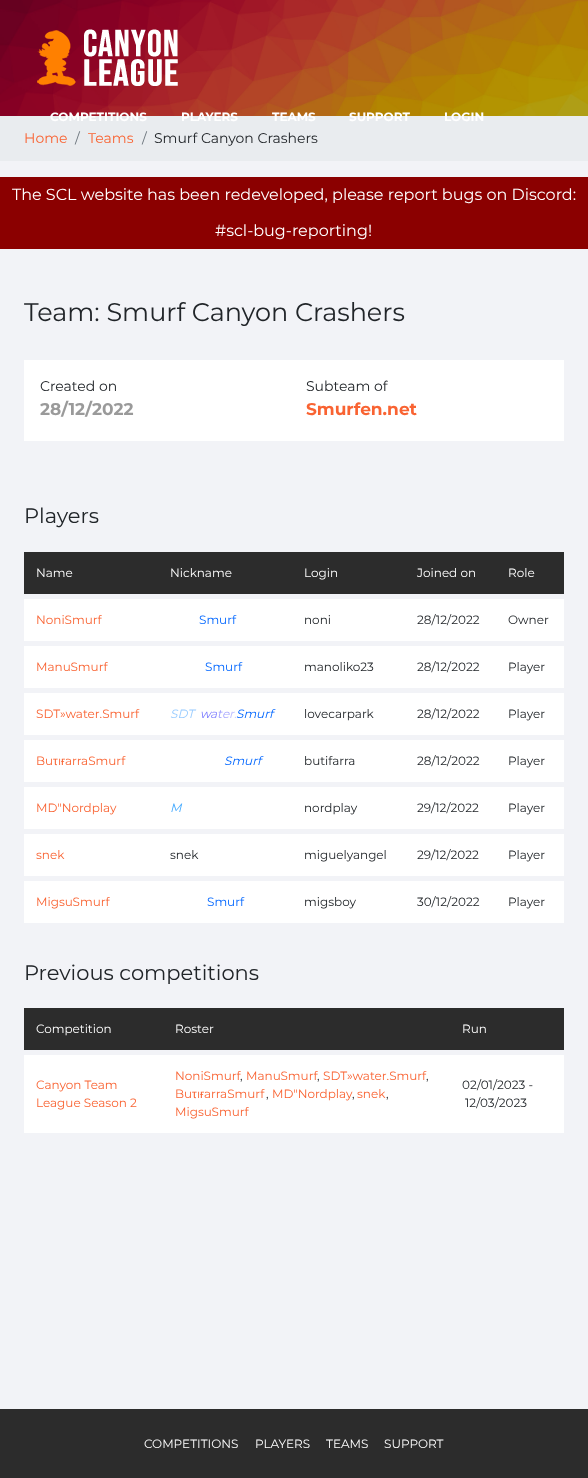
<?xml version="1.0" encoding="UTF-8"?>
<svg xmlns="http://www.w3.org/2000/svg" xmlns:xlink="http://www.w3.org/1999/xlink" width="588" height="1478">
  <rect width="100%" height="100%" fill="#f2f3f7" />
  <image x="0" y="0" width="588" height="116" xlink:href="image2.png" />
  <image x="37" y="29" width="141" height="57" xlink:href="image1.png" />
  <rect y="116" width="588" height="45" fill="#e9ecef" />
  <rect y="177" width="588" height="72" fill="#8b0000" />
  <rect x="24" y="360" width="540" height="81" fill="#ffffff" />
  <rect x="24" y="552" width="540" height="42" fill="#2c2c2c" />
  <rect x="24" y="599" width="540" height="42" fill="#ffffff" />
  <rect x="24" y="646" width="540" height="42" fill="#ffffff" />
  <rect x="24" y="693" width="540" height="42" fill="#ffffff" />
  <rect x="24" y="740" width="540" height="42" fill="#ffffff" />
  <rect x="24" y="787" width="540" height="42" fill="#ffffff" />
  <rect x="24" y="834" width="540" height="42" fill="#ffffff" />
  <rect x="24" y="881" width="540" height="42" fill="#ffffff" />
  <rect x="24" y="1008" width="540" height="42" fill="#2c2c2c" />
  <rect x="24" y="1055" width="540" height="78" fill="#ffffff" />
  <rect y="1409" width="588" height="69" fill="#2c2c2c" />
  <text x="50" y="121" style="font-family: Montserrat; font-size: 12px; font-weight: bold; fill: #ffffff">COMPETITIONS</text>
  <text x="181" y="121" style="font-family: Montserrat; font-size: 12px; font-weight: bold; fill: #ffffff">PLAYERS</text>
  <text x="272" y="121" style="font-family: Montserrat; font-size: 12px; font-weight: bold; fill: #ffffff">TEAMS</text>
  <text x="349" y="121" style="font-family: Montserrat; font-size: 12px; font-weight: bold; fill: #ffffff">SUPPORT</text>
  <text x="444" y="121" style="font-family: Montserrat; font-size: 12px; font-weight: bold; fill: #ffffff">LOGIN</text>
  <text x="24" y="143" style="font-family: Montserrat; font-size: 14px; fill: #f96332">Home</text>
  <text x="75" y="143" style="font-family: Montserrat; font-size: 14px; fill: #6c757d">/</text>
  <text x="88" y="143" style="font-family: Montserrat; font-size: 14px; fill: #f96332">Teams</text>
  <text x="142" y="143" style="font-family: Montserrat; font-size: 14px; fill: #6c757d">/</text>
  <text x="154" y="143" style="font-family: Montserrat; font-size: 14px; fill: #212529">Smurf Canyon Crashers</text>
  <text x="12" y="200" style="font-family: Montserrat; font-size: 16px; fill: #ffffff">The SCL website has been redeveloped, please report bugs on Discord:</text>
  <text x="215" y="236" style="font-family: Montserrat; font-size: 16px; fill: #ffffff">#scl-bug-reporting!</text>
  <text x="24" y="321" style="font-family: Montserrat; font-size: 25.5px; fill: #212529">Team: Smurf Canyon Crashers</text>
  <text x="40" y="391" style="font-family: Montserrat; font-size: 14px; fill: #212529">Created on</text>
  <text x="40" y="415" style="font-family: Montserrat; font-size: 17px; font-weight: bold; fill: #9a9a9a">28/12/2022</text>
  <text x="306" y="391" style="font-family: Montserrat; font-size: 14px; fill: #212529">Subteam of</text>
  <text x="306" y="415" style="font-family: Montserrat; font-size: 17px; font-weight: bold; fill: #f96332">Smurfen.net</text>
  <text x="24" y="523" style="font-family: Montserrat; font-size: 21px; fill: #212529">Players</text>
  <text x="36" y="577" style="font-family: Montserrat; font-size: 12px; fill: #ffffff">Name</text>
  <text x="170" y="577" style="font-family: Montserrat; font-size: 12px; fill: #ffffff">Nickname</text>
  <text x="304" y="577" style="font-family: Montserrat; font-size: 12px; fill: #ffffff">Login</text>
  <text x="417" y="577" style="font-family: Montserrat; font-size: 12px; fill: #ffffff">Joined on</text>
  <text x="508" y="577" style="font-family: Montserrat; font-size: 12px; fill: #ffffff">Role</text>
  <text x="36" y="624" style="font-family: Montserrat; font-size: 12px; fill: #f96332">NoniSmurf</text>
  <text x="199" y="624" style="font-family: Montserrat; font-size: 12px; fill: #0066ff">Smurf</text>
  <text x="304" y="624" style="font-family: Montserrat; font-size: 12px; fill: #212529">noni</text>
  <text x="417" y="624" style="font-family: Montserrat; font-size: 12px; fill: #212529">28/12/2022</text>
  <text x="508" y="624" style="font-family: Montserrat; font-size: 12px; fill: #212529">Owner</text>
  <text x="36" y="671" style="font-family: Montserrat; font-size: 12px; fill: #f96332">ManuSmurf</text>
  <text x="205" y="671" style="font-family: Montserrat; font-size: 12px; fill: #0066ff">Smurf</text>
  <text x="304" y="671" style="font-family: Montserrat; font-size: 12px; fill: #212529">manoliko23</text>
  <text x="417" y="671" style="font-family: Montserrat; font-size: 12px; fill: #212529">28/12/2022</text>
  <text x="508" y="671" style="font-family: Montserrat; font-size: 12px; fill: #212529">Player</text>
  <text x="36" y="718" style="font-family: Montserrat; font-size: 12px; fill: #f96332">SDT»water.Smurf</text>
  <text x="170" y="718" style="font-family: Montserrat; font-size: 12px; font-style: italic; fill: #99ccff">SDT</text>
  <text x="200" y="718" style="font-family: Montserrat; font-size: 12px; font-style: italic; fill: #7777ff">w</text>
  <text x="210" y="718" style="font-family: Montserrat; font-size: 12px; font-style: italic; fill: #8888ff">a</text>
  <text x="217" y="718" style="font-family: Montserrat; font-size: 12px; font-style: italic; fill: #9999ff">t</text>
  <text x="222" y="718" style="font-family: Montserrat; font-size: 12px; font-style: italic; fill: #aaaaff">e</text>
  <text x="229" y="718" style="font-family: Montserrat; font-size: 12px; font-style: italic; fill: #bbbbff">r</text>
  <text x="236" y="718" style="font-family: Montserrat; font-size: 12px; font-style: italic; fill: #0066ff">Smurf</text>
  <text x="234" y="718" style="font-family: Montserrat; font-size: 12px; font-style: italic; fill: #ccccff">.</text>
  <text x="304" y="718" style="font-family: Montserrat; font-size: 12px; fill: #212529">lovecarpark</text>
  <text x="417" y="718" style="font-family: Montserrat; font-size: 12px; fill: #212529">28/12/2022</text>
  <text x="508" y="718" style="font-family: Montserrat; font-size: 12px; fill: #212529">Player</text>
  <text x="36" y="765" style="font-family: Montserrat; font-size: 12px; fill: #f96332">Bu</text>
  <text x="53" y="765" style="font-family: Liberation Sans; font-size: 12px; fill: #f96332">τ ғ</text>
  <text x="65" y="765" style="font-family: Montserrat; font-size: 12px; fill: #f96332">arraSmurf</text>
  <text x="58" y="765" style="font-family: Montserrat; font-size: 12px; fill: #f96332">ı</text>
  <text x="224" y="765" style="font-family: Montserrat; font-size: 12px; font-style: italic; fill: #0066ff">Smurf</text>
  <text x="304" y="765" style="font-family: Montserrat; font-size: 12px; fill: #212529">butifarra</text>
  <text x="417" y="765" style="font-family: Montserrat; font-size: 12px; fill: #212529">28/12/2022</text>
  <text x="508" y="765" style="font-family: Montserrat; font-size: 12px; fill: #212529">Player</text>
  <text x="36" y="812" style="font-family: Montserrat; font-size: 12px; fill: #f96332">MD"Nordplay</text>
  <text x="170" y="812" style="font-family: Montserrat; font-size: 12px; font-style: italic; fill: #44aaff">M</text>
  <text x="304" y="812" style="font-family: Montserrat; font-size: 12px; fill: #212529">nordplay</text>
  <text x="417" y="812" style="font-family: Montserrat; font-size: 12px; fill: #212529">29/12/2022</text>
  <text x="508" y="812" style="font-family: Montserrat; font-size: 12px; fill: #212529">Player</text>
  <text x="36" y="859" style="font-family: Montserrat; font-size: 12px; fill: #f96332">snek</text>
  <text x="170" y="859" style="font-family: Montserrat; font-size: 12px; fill: #212529">snek</text>
  <text x="304" y="859" style="font-family: Montserrat; font-size: 12px; fill: #212529">miguelyangel</text>
  <text x="417" y="859" style="font-family: Montserrat; font-size: 12px; fill: #212529">29/12/2022</text>
  <text x="508" y="859" style="font-family: Montserrat; font-size: 12px; fill: #212529">Player</text>
  <text x="36" y="906" style="font-family: Montserrat; font-size: 12px; fill: #f96332">MigsuSmurf</text>
  <text x="207" y="906" style="font-family: Montserrat; font-size: 12px; fill: #0066ff">Smurf</text>
  <text x="304" y="906" style="font-family: Montserrat; font-size: 12px; fill: #212529">migsboy</text>
  <text x="417" y="906" style="font-family: Montserrat; font-size: 12px; fill: #212529">30/12/2022</text>
  <text x="508" y="906" style="font-family: Montserrat; font-size: 12px; fill: #212529">Player</text>
  <text x="24" y="980" style="font-family: Montserrat; font-size: 21px; fill: #212529">Previous competitions</text>
  <text x="36" y="1033" style="font-family: Montserrat; font-size: 12px; fill: #ffffff">Competition</text>
  <text x="175" y="1033" style="font-family: Montserrat; font-size: 12px; fill: #ffffff">Roster</text>
  <text x="462" y="1033" style="font-family: Montserrat; font-size: 12px; fill: #ffffff">Run</text>
  <text x="36" y="1089" style="font-family: Montserrat; font-size: 12px; fill: #f96332">Canyon Team</text>
  <text x="36" y="1107" style="font-family: Montserrat; font-size: 12px; fill: #f96332">League Season 2</text>
  <text x="175" y="1080" style="font-family: Montserrat; font-size: 12px; fill: #f96332">NoniSmurf</text>
  <text x="240" y="1080" style="font-family: Montserrat; font-size: 12px; fill: #212529">,</text>
  <text x="246" y="1080" style="font-family: Montserrat; font-size: 12px; fill: #f96332">ManuSmurf</text>
  <text x="317" y="1080" style="font-family: Montserrat; font-size: 12px; fill: #212529">,</text>
  <text x="323" y="1080" style="font-family: Montserrat; font-size: 12px; fill: #f96332">SDT»water.Smurf</text>
  <text x="426" y="1080" style="font-family: Montserrat; font-size: 12px; fill: #212529">,</text>
  <text x="175" y="1098" style="font-family: Montserrat; font-size: 12px; fill: #f96332">Bu</text>
  <text x="192" y="1098" style="font-family: Liberation Sans; font-size: 12px; fill: #f96332">τ ғ</text>
  <text x="204" y="1098" style="font-family: Montserrat; font-size: 12px; fill: #f96332">arraSmurf</text>
  <text x="272" y="1098" style="font-family: Montserrat; font-size: 12px; fill: #f96332">MD"Nordplay</text>
  <text x="357" y="1098" style="font-family: Montserrat; font-size: 12px; fill: #f96332">snek</text>
  <text x="197" y="1098" style="font-family: Montserrat; font-size: 12px; fill: #f96332">ı</text>
  <text x="266" y="1098" style="font-family: Montserrat; font-size: 12px; fill: #212529">,</text>
  <text x="352" y="1098" style="font-family: Montserrat; font-size: 12px; fill: #212529">,</text>
  <text x="386" y="1098" style="font-family: Montserrat; font-size: 12px; fill: #212529">,</text>
  <text x="175" y="1116" style="font-family: Montserrat; font-size: 12px; fill: #f96332">MigsuSmurf</text>
  <text x="462" y="1089" style="font-family: Montserrat; font-size: 12px; fill: #212529">02/01/2023 -</text>
  <text x="465" y="1107" style="font-family: Montserrat; font-size: 12px; fill: #212529">12/03/2023</text>
  <text x="144" y="1448" style="font-family: Montserrat; font-size: 12px; fill: #ffffff">COMPETITIONS</text>
  <text x="255" y="1448" style="font-family: Montserrat; font-size: 12px; fill: #ffffff">PLAYERS</text>
  <text x="326" y="1448" style="font-family: Montserrat; font-size: 12px; fill: #ffffff">TEAMS</text>
  <text x="384" y="1448" style="font-family: Montserrat; font-size: 12px; fill: #ffffff">SUPPORT</text>
</svg>
